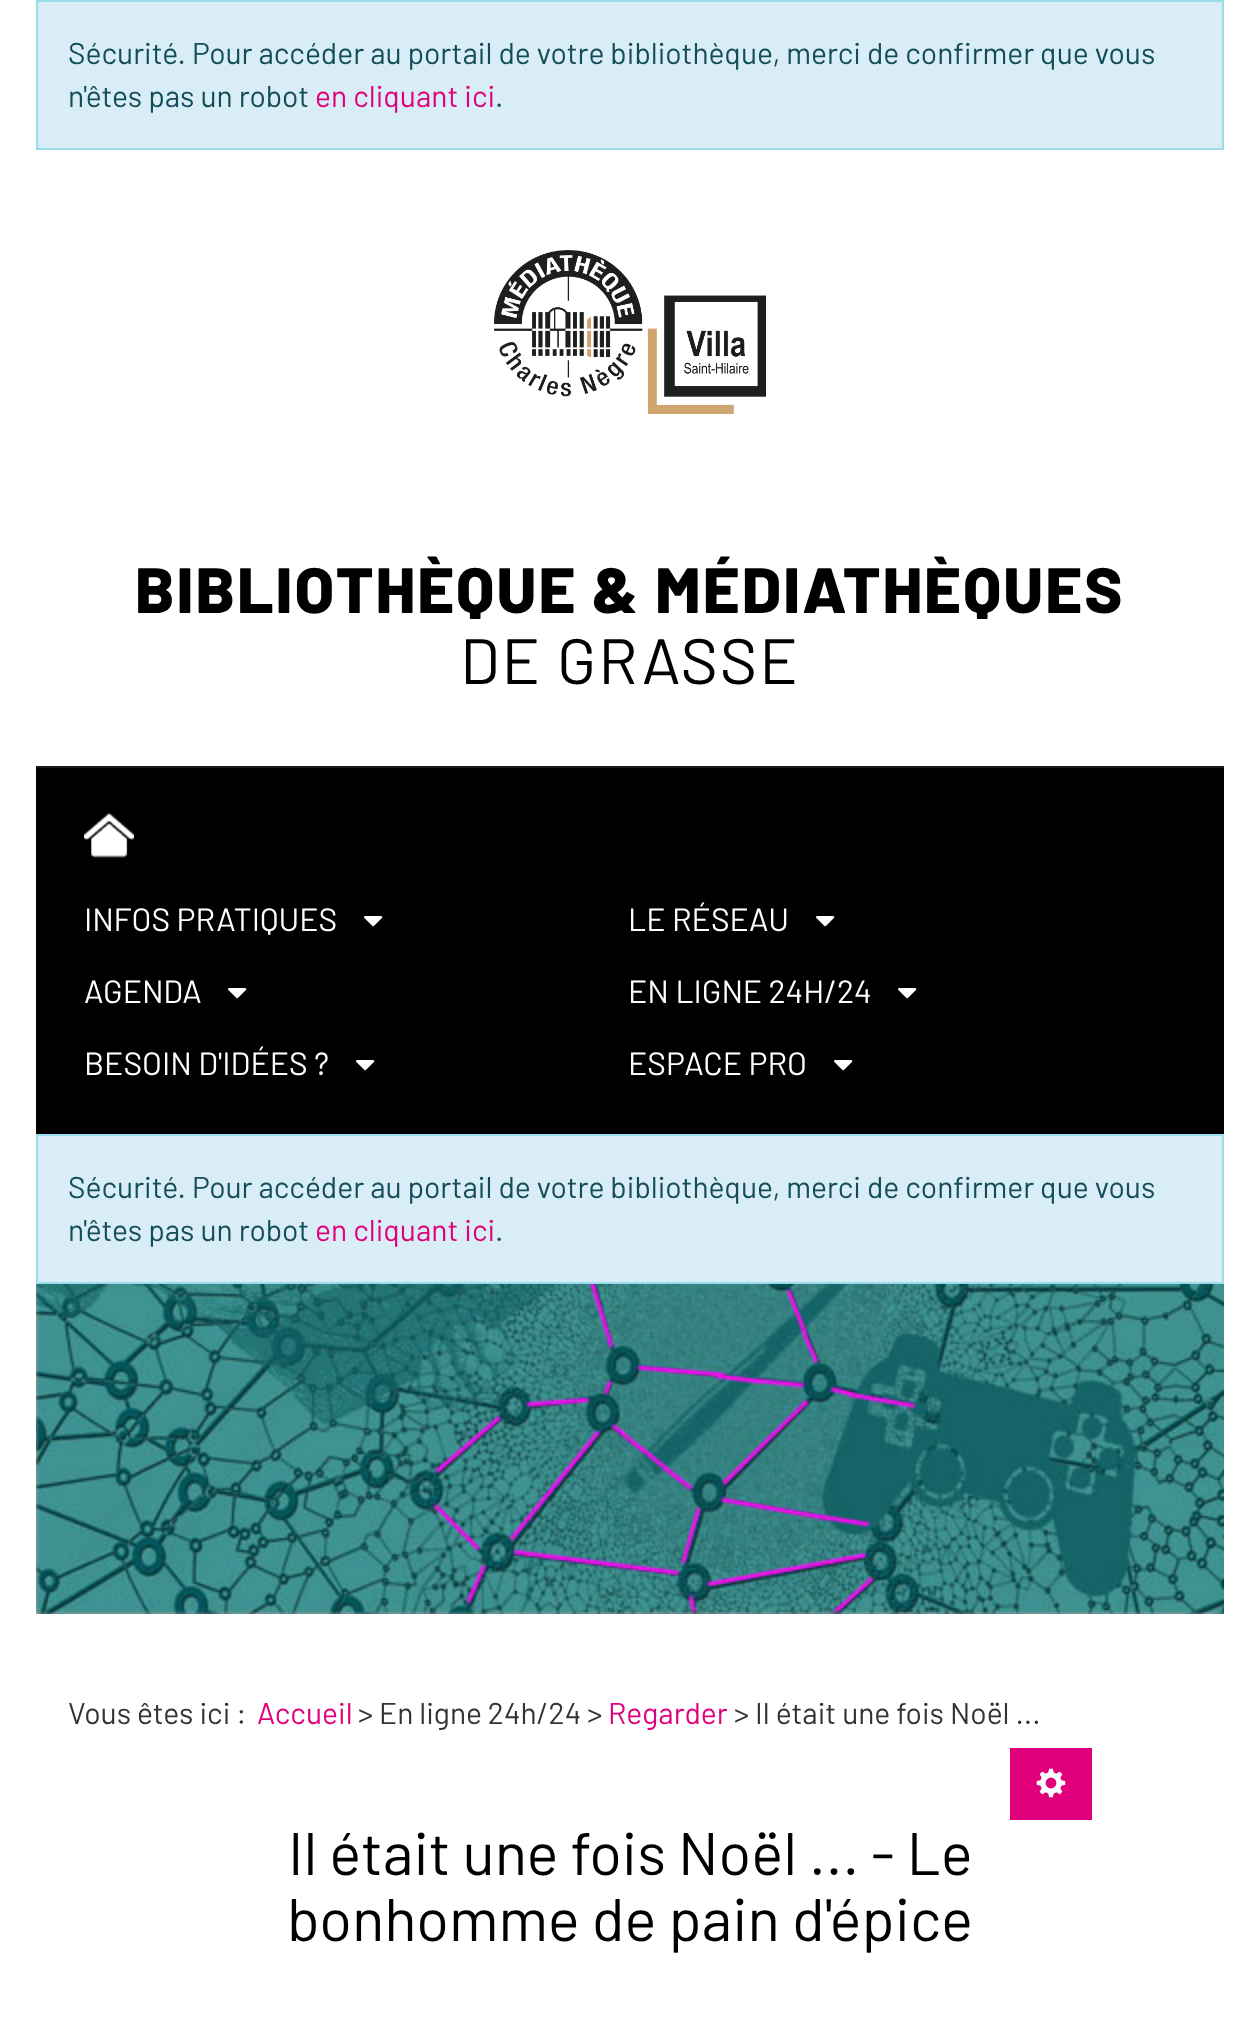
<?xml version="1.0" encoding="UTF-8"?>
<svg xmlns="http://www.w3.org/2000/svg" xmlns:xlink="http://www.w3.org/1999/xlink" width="1260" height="2023">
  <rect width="100%" height="100%" fill="#ffffff" />
  <rect x="37" y="1" width="1186" height="148" fill="#d9edf7" stroke="#9adcea" stroke-width="2" />
  <image x="494" y="250" width="272" height="164" xlink:href="image1.png" />
  <rect x="36" y="768" width="1188" height="366" fill="#000000" />
  <rect x="36" y="766" width="1188" height="2" fill="#1a1a1a" />
  <image x="84" y="812" width="50" height="46" xlink:href="image2.png" />
  <image x="364" y="916" width="19" height="11" xlink:href="image3.png" />
  <image x="816" y="916" width="19" height="11" xlink:href="image3.png" />
  <image x="228" y="988" width="19" height="11" xlink:href="image3.png" />
  <image x="898" y="988" width="19" height="11" xlink:href="image3.png" />
  <image x="356" y="1060" width="19" height="11" xlink:href="image3.png" />
  <image x="834" y="1060" width="19" height="11" xlink:href="image3.png" />
  <image x="36" y="1284" width="1188" height="330" xlink:href="image4.png" />
  <rect x="37" y="1135" width="1186" height="148" fill="#d9edf7" stroke="#9adcea" stroke-width="2" />
  <rect x="1010" y="1748" width="82" height="72" fill="#e0007c" />
  <image x="1036" y="1768" width="30" height="30" xlink:href="image5.png" />
  <text x="68" y="64" style="font-family: Barlow; font-size: 30px; fill: #134d58">Sécurité. Pour accéder au portail de votre bibliothèque, merci de confirmer que vous</text>
  <text x="68" y="107" style="font-family: Barlow; font-size: 30px; fill: #134d58">n'êtes pas un robot</text>
  <text x="315" y="107" style="font-family: Barlow; font-size: 30px; fill: #e0007c">en cliquant ici</text>
  <text x="495" y="107" style="font-family: Barlow; font-size: 30px; fill: #134d58">.</text>
  <text x="135" y="613" style="font-family: Barlow; font-size: 64px; font-weight: 800; letter-spacing: 2px; fill: #000000">BIBLIOTHÈQUE &amp; MÉDIATHÈQUES</text>
  <text x="460" y="684" style="font-family: Barlow; font-size: 64px; letter-spacing: 2px; fill: #000000">DE GRASSE</text>
  <text x="84" y="931" style="font-family: Barlow; font-size: 32px; fill: #ffffff">INFOS PRATIQUES</text>
  <text x="628" y="931" style="font-family: Barlow; font-size: 32px; fill: #ffffff">LE RÉSEAU</text>
  <text x="84" y="1003" style="font-family: Barlow; font-size: 32px; fill: #ffffff">AGENDA</text>
  <text x="628" y="1003" style="font-family: Barlow; font-size: 32px; fill: #ffffff">EN LIGNE 24H/24</text>
  <text x="84" y="1075" style="font-family: Barlow; font-size: 32px; fill: #ffffff">BESOIN D'IDÉES ?</text>
  <text x="628" y="1075" style="font-family: Barlow; font-size: 32px; fill: #ffffff">ESPACE PRO</text>
  <text x="68" y="1198" style="font-family: Barlow; font-size: 30px; fill: #134d58">Sécurité. Pour accéder au portail de votre bibliothèque, merci de confirmer que vous</text>
  <text x="68" y="1241" style="font-family: Barlow; font-size: 30px; fill: #134d58">n'êtes pas un robot</text>
  <text x="315" y="1241" style="font-family: Barlow; font-size: 30px; fill: #e0007c">en cliquant ici</text>
  <text x="495" y="1241" style="font-family: Barlow; font-size: 30px; fill: #134d58">.</text>
  <text x="68" y="1724" style="font-family: Barlow; font-size: 30px; fill: #333333">Vous êtes ici :</text>
  <text x="257" y="1724" style="font-family: Barlow; font-size: 30px; fill: #e0007c">Accueil</text>
  <text x="358" y="1724" style="font-family: Barlow; font-size: 30px; fill: #333333">&gt; En ligne 24h/24 &gt;</text>
  <text x="608" y="1724" style="font-family: Barlow; font-size: 30px; fill: #e0007c">Regarder</text>
  <text x="734" y="1724" style="font-family: Barlow; font-size: 30px; fill: #333333">&gt; Il était une fois Noël ...</text>
  <text x="288" y="1875" style="font-family: Barlow; font-size: 60px; fill: #000000">Il était une fois Noël ... - Le</text>
  <text x="287" y="1941" style="font-family: Barlow; font-size: 60px; fill: #000000">bonhomme de pain d'épice</text>
</svg>
